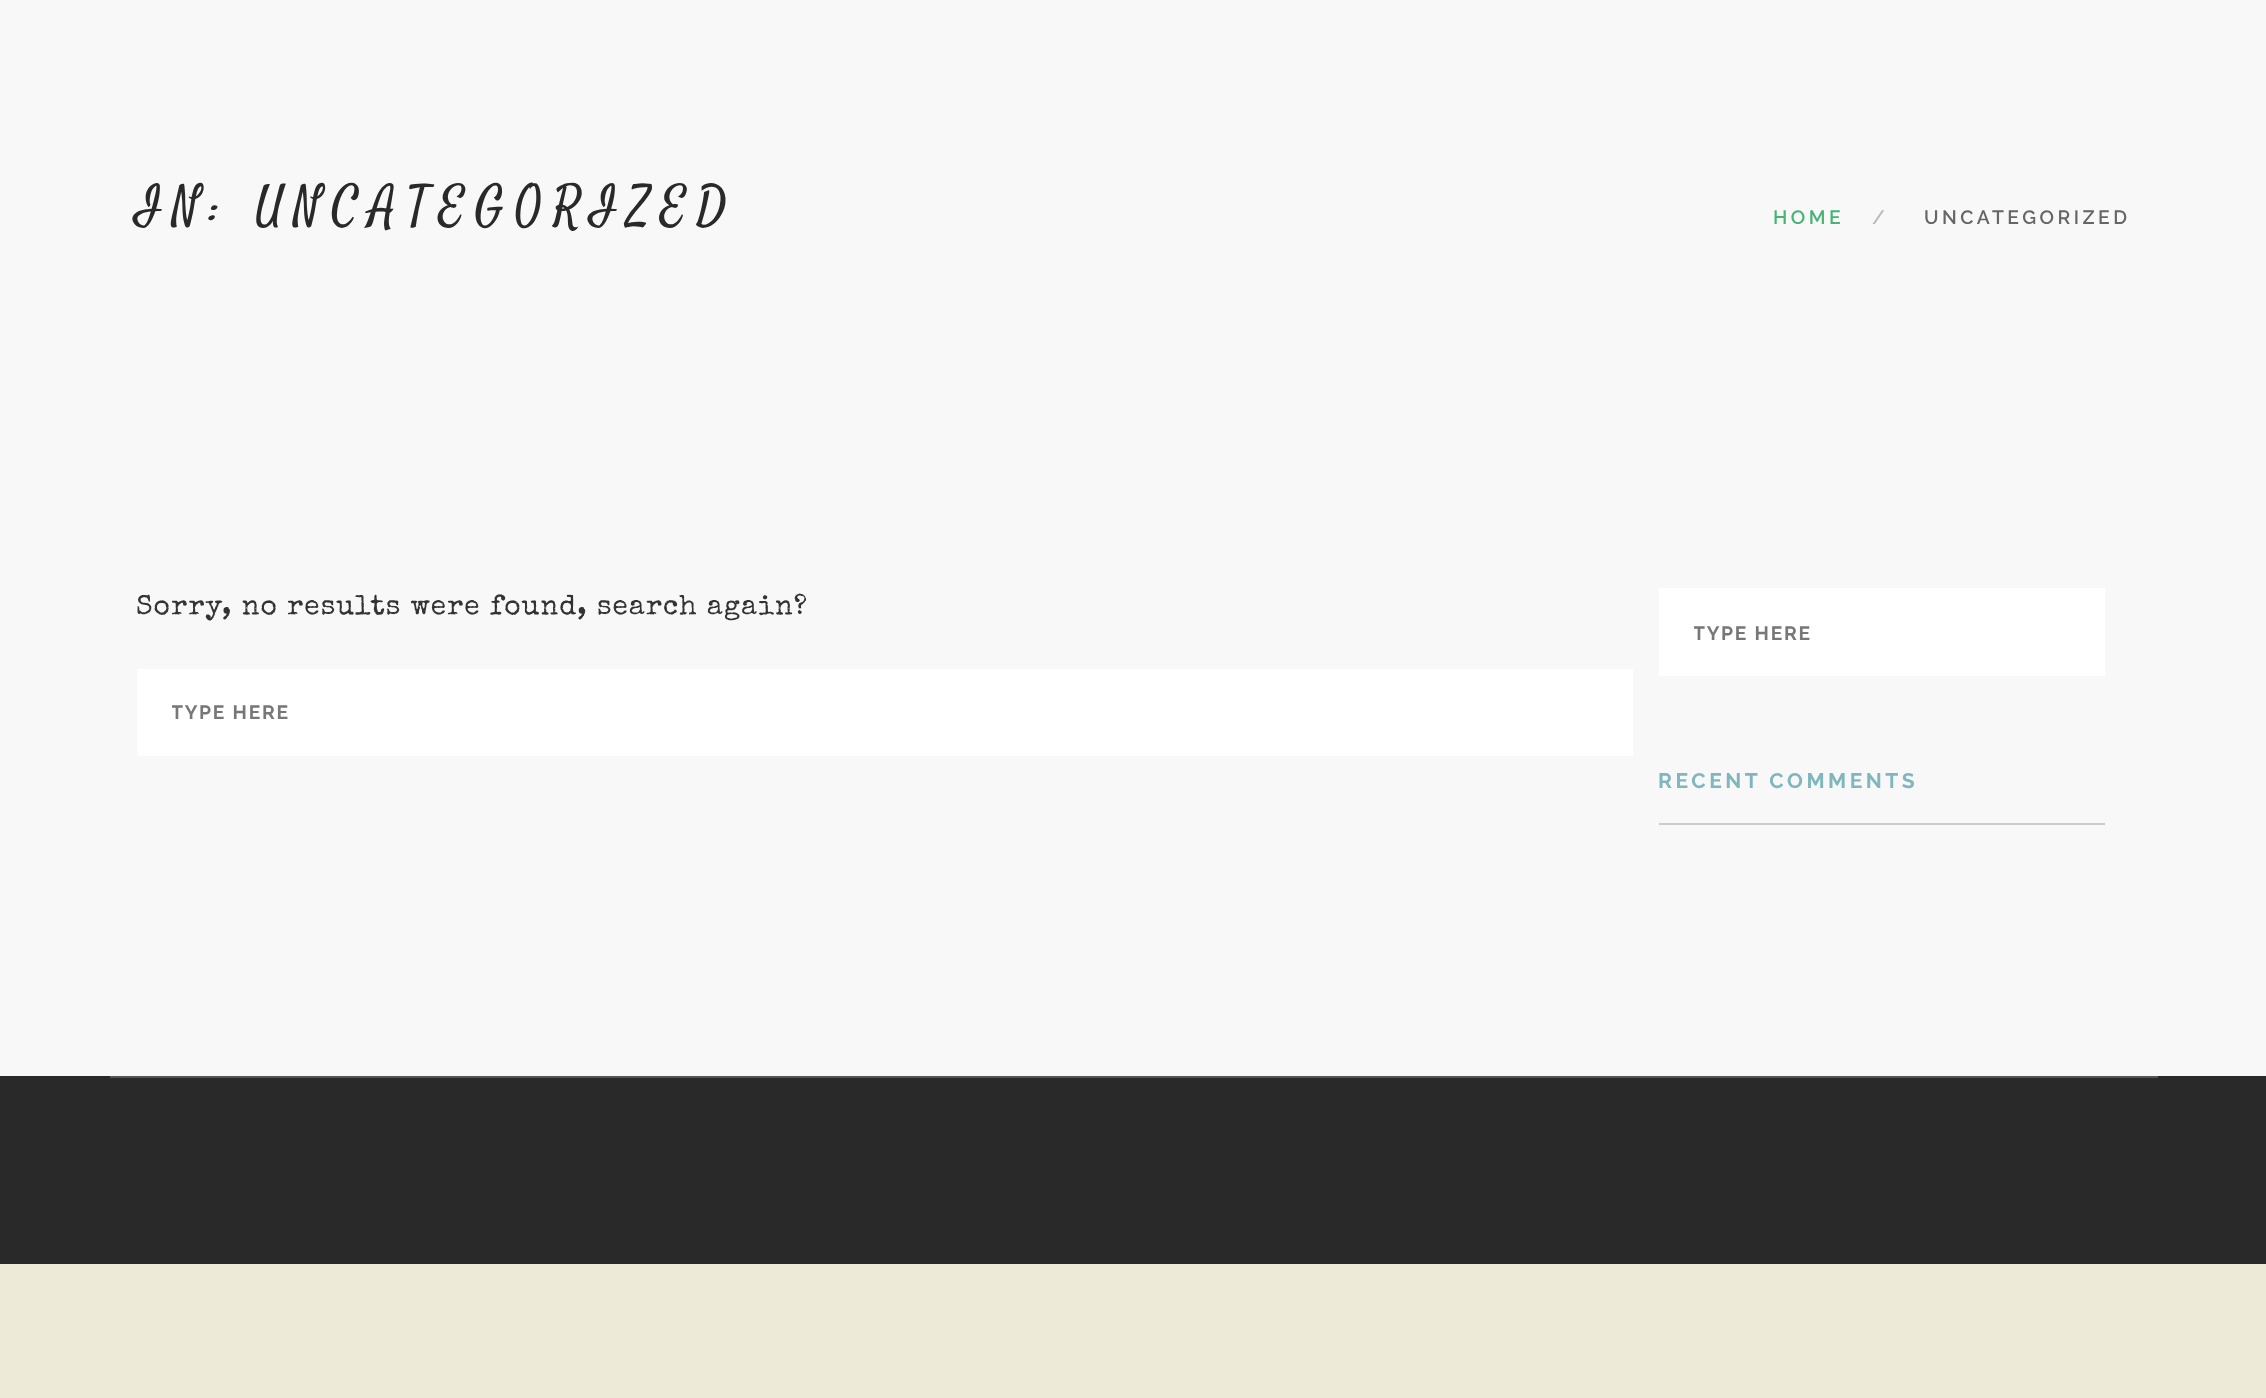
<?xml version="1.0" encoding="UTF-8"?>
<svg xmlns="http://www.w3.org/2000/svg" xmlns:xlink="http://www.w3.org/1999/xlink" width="2266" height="1398">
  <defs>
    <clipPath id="clip1"><rect x="172" y="702" width="1461" height="23" /></clipPath>
    <clipPath id="clip2"><rect x="1694" y="623" width="411" height="23" /></clipPath>
  </defs>
  <rect width="100%" height="100%" fill="#edebd7" />
  <rect width="2266" height="1076" fill="#f8f8f8" />
  <rect x="137" y="669" width="1496" height="87" fill="#ffffff" />
  <rect x="1659" y="588" width="446" height="88" fill="#ffffff" />
  <rect x="1659" y="823" width="446" height="2" fill="#cccccc" />
  <rect y="1076" width="2266" height="188" fill="#292929" />
  <rect x="110" y="1076" width="2048" height="2" fill="#555555" />
  <text x="136" y="219" style="font-family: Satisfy; font-size: 49px; letter-spacing: 10.5px; fill: #292929">IN: UNCATEGORIZED</text>
  <text x="1773" y="224" style="font-family: Raleway; font-size: 19.25px; font-weight: 600; letter-spacing: 3.5px; fill: #47b475">HOME</text>
  <text x="1872" y="224" style="font-family: Raleway; font-size: 19.25px; font-weight: 600; letter-spacing: 3.5px; fill: #bbbbbb">/</text>
  <text x="1924" y="224" style="font-family: Raleway; font-size: 19.25px; font-weight: 600; letter-spacing: 3.5px; fill: #666666">UNCATEGORIZED</text>
  <text x="136" y="614" style="font-family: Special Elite; font-size: 28px; letter-spacing: 1.05px; fill: #333332">Sorry, no results were found, search again?</text>
  <g clip-path="url(#clip1)">
    <text x="171" y="719" style="font-family: Raleway; font-size: 19.25px; font-weight: bold; letter-spacing: 1.75px; fill: #777777">TYPE HERE</text>
  </g>
  <g clip-path="url(#clip2)">
    <text x="1693" y="640" style="font-family: Raleway; font-size: 19.25px; font-weight: bold; letter-spacing: 1.75px; fill: #777777">TYPE HERE</text>
  </g>
  <text x="1658" y="788" style="font-family: Raleway; font-size: 21px; font-weight: bold; letter-spacing: 3.5px; fill: #80b7be">RECENT COMMENTS</text>
</svg>
